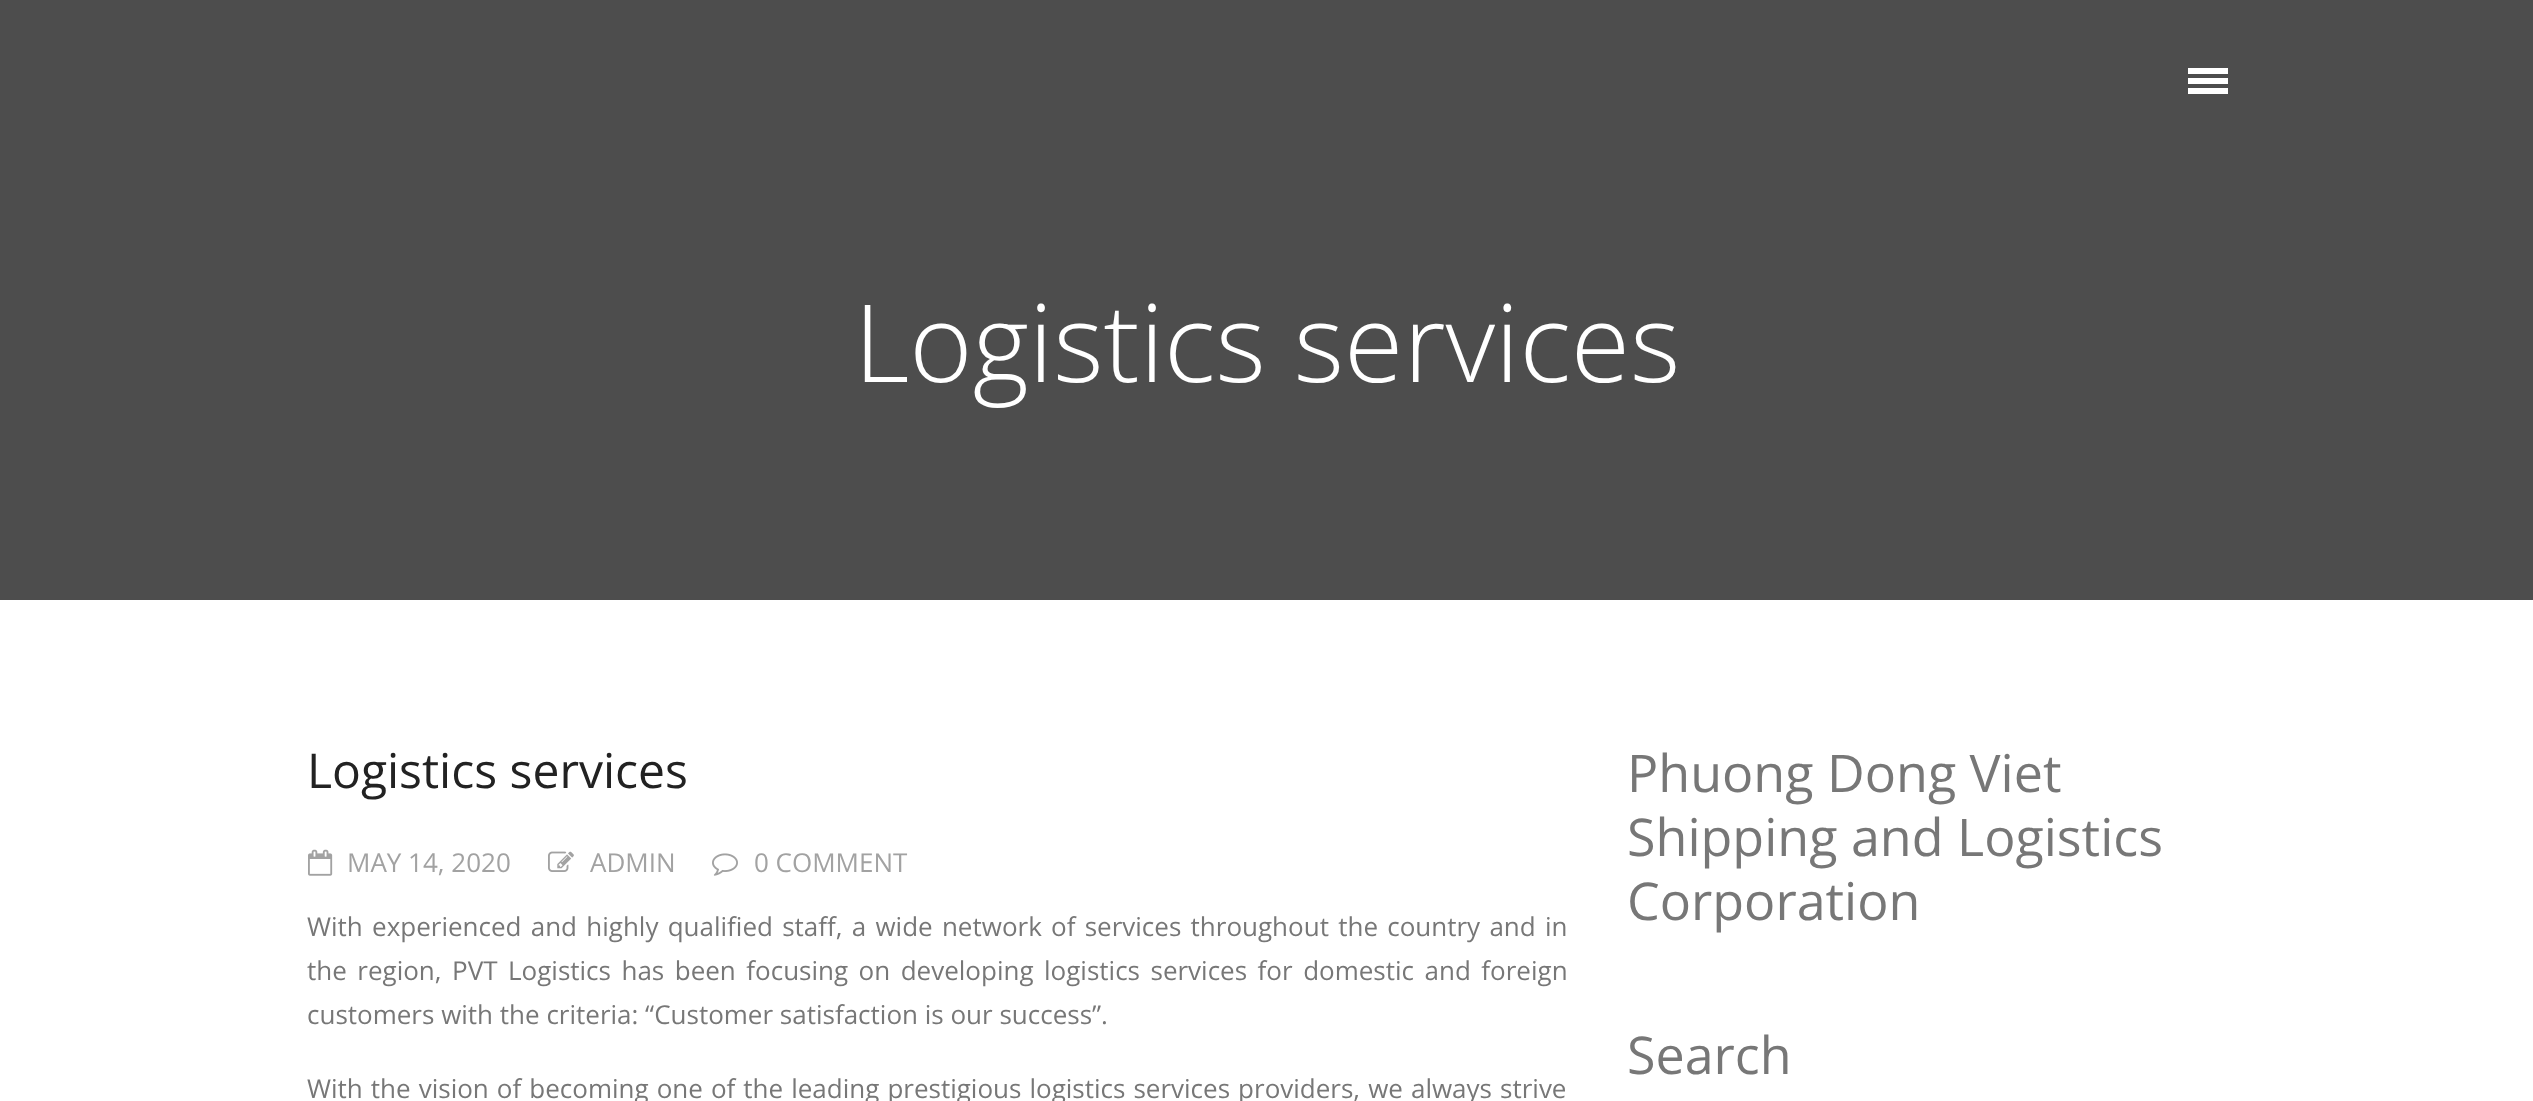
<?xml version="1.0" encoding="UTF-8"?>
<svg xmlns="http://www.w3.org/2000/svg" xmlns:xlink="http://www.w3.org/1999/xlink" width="2533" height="1101">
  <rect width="100%" height="100%" fill="#ffffff" />
  <rect width="2533" height="600" fill="#4d4d4d" />
  <rect x="2188" y="68" width="40" height="6" fill="#ffffff" />
  <rect x="2188" y="78" width="40" height="6" fill="#ffffff" />
  <rect x="2188" y="88" width="40" height="6" fill="#ffffff" />
  <image x="308" y="849" width="25" height="27" xlink:href="image1.png" />
  <image x="548" y="851" width="26" height="21" xlink:href="image2.png" />
  <image x="712" y="853" width="26" height="23" xlink:href="image3.png" />
  <text x="854" y="382" style="font-family: Open Sans; font-size: 108px; font-weight: 300; fill: #ffffff">Logistics services</text>
  <text x="307" y="788" style="font-family: Open Sans; font-size: 48px; fill: #222222">Logistics services</text>
  <text x="347" y="872" style="font-family: Open Sans; font-size: 26px; fill: #a2a2a2">MAY 14, 2020</text>
  <text x="590" y="872" style="font-family: Open Sans; font-size: 26px; fill: #a2a2a2">ADMIN</text>
  <text x="754" y="872" style="font-family: Open Sans; font-size: 26px; fill: #a2a2a2">0 COMMENT</text>
  <text x="307" y="936" word-spacing="2.5" style="font-family: Open Sans; font-size: 26px; fill: #777777">With experienced and highly qualified staff, a wide network of services throughout the country and in</text>
  <text x="307" y="980" word-spacing="3.75" style="font-family: Open Sans; font-size: 26px; fill: #777777">the region, PVT Logistics has been focusing on developing logistics services for domestic and foreign</text>
  <text x="307" y="1024" style="font-family: Open Sans; font-size: 26px; fill: #777777">customers with the criteria: “Customer satisfaction is our success”.</text>
  <text x="307" y="1098" word-spacing="1.3" style="font-family: Open Sans; font-size: 26px; fill: #777777">With the vision of becoming one of the leading prestigious logistics services providers, we always strive</text>
  <text x="1627" y="792" style="font-family: Open Sans; font-size: 52px; fill: #777777">Phuong Dong Viet</text>
  <text x="1627" y="856" style="font-family: Open Sans; font-size: 52px; fill: #777777">Shipping and Logistics</text>
  <text x="1627" y="920" style="font-family: Open Sans; font-size: 52px; fill: #777777">Corporation</text>
  <text x="1627" y="1074" style="font-family: Open Sans; font-size: 52px; fill: #777777">Search</text>
</svg>
